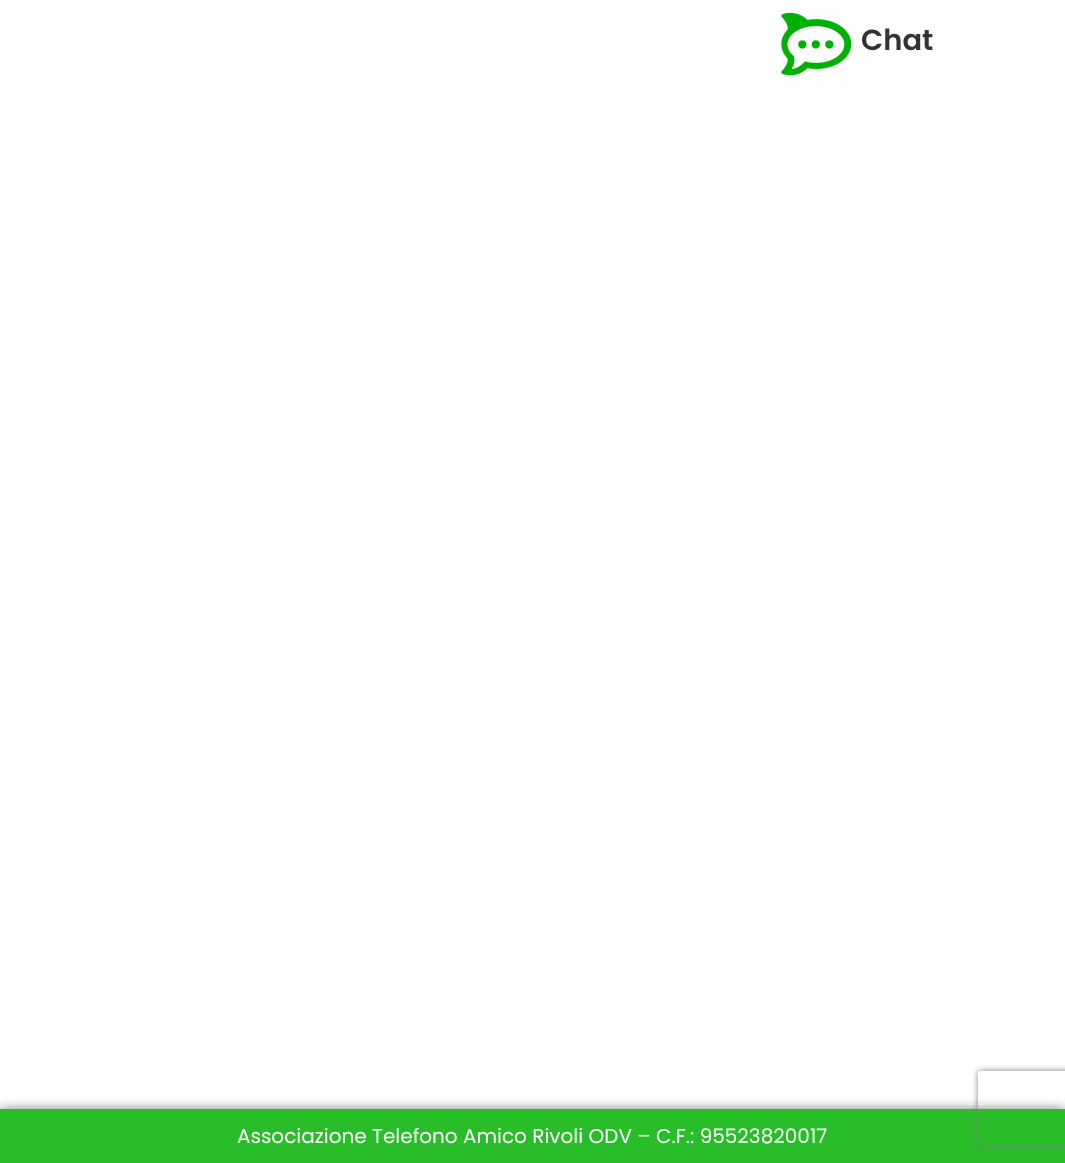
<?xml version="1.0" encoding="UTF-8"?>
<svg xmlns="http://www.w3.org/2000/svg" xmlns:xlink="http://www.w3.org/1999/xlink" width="1065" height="1163">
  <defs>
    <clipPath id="clip1"><path d="M 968 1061 h 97 v 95 h -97 z m 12.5 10 h 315 c 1.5 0 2.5 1 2.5 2.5 v 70 c 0 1.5 -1 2.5 -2.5 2.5 h -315 c -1.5 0 -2.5 -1 -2.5 -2.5 v -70 c 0 -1.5 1 -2.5 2.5 -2.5 z" clip-rule="evenodd" /></clipPath>
  </defs>
  <rect width="100%" height="100%" fill="#ffffff" />
  <image x="781" y="12" width="71" height="64" xlink:href="image1.png" />
  <rect y="1109" width="1065" height="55" fill="#000000" fill-opacity="0.5" filter="blur(6px)" />
  <rect y="1109" width="1065" height="54" fill="#29bd2a" />
  <g clip-path="url(#clip1)">
    <rect x="978" y="1071" width="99" height="75" rx="2.5" fill="#808080" filter="blur(3px)" />
  </g>
  <text x="861" y="50" style="font-family: Poppins; font-size: 29px; font-weight: 600; fill: #333333">Chat</text>
  <text x="237" y="1143" style="font-family: Poppins; font-size: 20px; fill: #ffffff">Associazione Telefono Amico Rivoli ODV – C.F.: 95523820017</text>
</svg>
